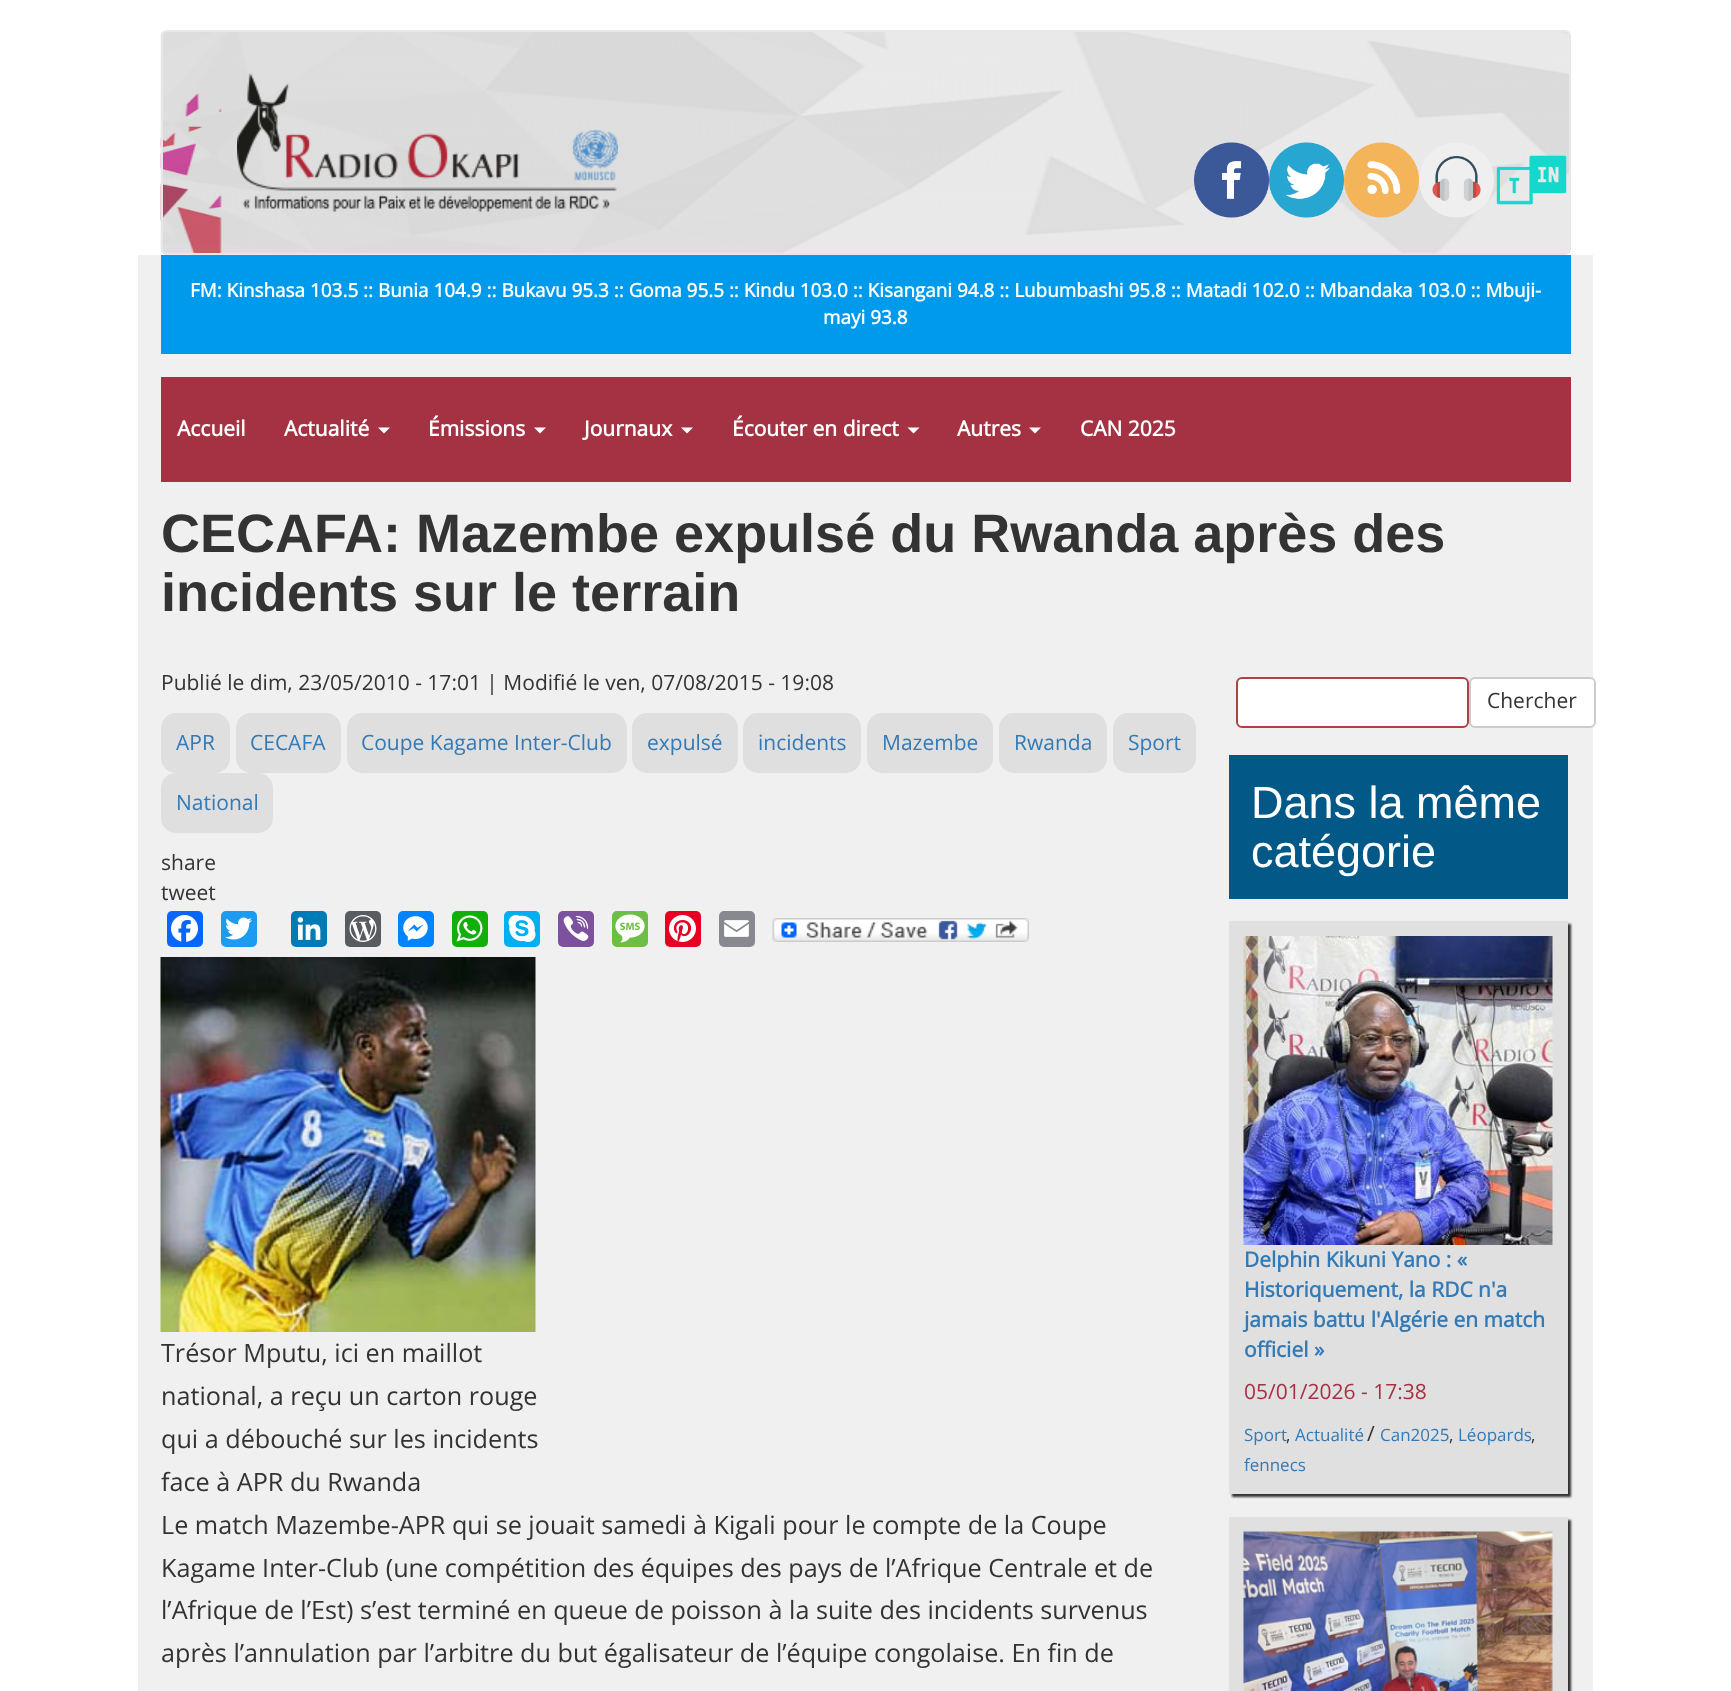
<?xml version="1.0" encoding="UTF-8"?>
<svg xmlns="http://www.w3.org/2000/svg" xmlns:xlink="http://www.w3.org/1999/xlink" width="1731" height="1691">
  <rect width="100%" height="100%" fill="#ffffff" />
  <image x="160" y="31" width="1411" height="223" xlink:href="image1.png" />
  <rect x="162" y="31" width="1408" height="223" rx="5" fill="none" stroke="#e7e7e7" stroke-width="2" />
  <image x="237" y="73" width="381" height="139" xlink:href="image2.png" />
  <image x="1194" y="142" width="75" height="76" xlink:href="image3.png" />
  <image x="1269" y="142" width="75" height="76" xlink:href="image4.png" />
  <image x="1344" y="142" width="75" height="76" xlink:href="image5.png" />
  <image x="1419" y="143" width="75" height="75" xlink:href="image6.png" />
  <image x="1496" y="155" width="71" height="50" xlink:href="image7.png" />
  <rect x="138" y="255" width="1455" height="1436" fill="#f0f0f0" />
  <rect x="161" y="255" width="1410" height="99" fill="#009aec" />
  <rect x="161" y="377" width="1410" height="105" fill="#a53242" />
  <path d="M 378 427.5 h 12 l -6 6 z" fill="#ffffff" />
  <path d="M 534 427.5 h 12 l -6 6 z" fill="#ffffff" />
  <path d="M 681 427.5 h 12 l -6 6 z" fill="#ffffff" />
  <path d="M 907.5 427.5 h 12 l -6 6 z" fill="#ffffff" />
  <path d="M 1029 427.5 h 12 l -6 6 z" fill="#ffffff" />
  <rect x="161" y="713" width="69" height="60" rx="15" fill="#dfdfdf" />
  <rect x="236" y="713" width="105" height="60" rx="15" fill="#dfdfdf" />
  <rect x="347" y="713" width="280" height="60" rx="15" fill="#dfdfdf" />
  <rect x="632" y="713" width="106" height="60" rx="15" fill="#dfdfdf" />
  <rect x="743" y="713" width="118" height="60" rx="15" fill="#dfdfdf" />
  <rect x="867" y="713" width="126" height="60" rx="15" fill="#dfdfdf" />
  <rect x="999" y="713" width="108" height="60" rx="15" fill="#dfdfdf" />
  <rect x="1113" y="713" width="83" height="60" rx="15" fill="#dfdfdf" />
  <rect x="161" y="773" width="112" height="60" rx="15" fill="#dfdfdf" />
  <rect x="167" y="911" width="36" height="36" rx="5" fill="#0866ff" />
  <image x="171" y="915" width="27" height="27" xlink:href="image8.png" />
  <rect x="221" y="911" width="36" height="36" rx="5" fill="#1d9bf0" />
  <image x="225" y="917" width="27" height="23" xlink:href="image9.png" />
  <rect x="291" y="911" width="36" height="36" rx="5" fill="#007bb5" />
  <image x="297" y="917" width="24" height="23" xlink:href="image10.png" />
  <rect x="345" y="911" width="36" height="36" rx="5" fill="#585c60" />
  <image x="349" y="915" width="28" height="27" xlink:href="image11.png" />
  <rect x="398" y="911" width="36" height="36" rx="5" fill="#0084ff" />
  <image x="403" y="916" width="25" height="25" xlink:href="image12.png" />
  <rect x="452" y="911" width="36" height="36" rx="5" fill="#12af0a" />
  <image x="456" y="915" width="27" height="27" xlink:href="image13.png" />
  <rect x="504" y="911" width="36" height="36" rx="5" fill="#00aff0" />
  <image x="508" y="915" width="28" height="27" xlink:href="image14.png" />
  <rect x="558" y="911" width="36" height="36" rx="5" fill="#7c529e" />
  <image x="563" y="915" width="26" height="27" xlink:href="image15.png" />
  <rect x="612" y="911" width="36" height="36" rx="5" fill="#6cbe45" />
  <image x="615" y="914" width="30" height="29" xlink:href="image16.png" />
  <rect x="665" y="911" width="36" height="36" rx="5" fill="#e60023" />
  <image x="669" y="915" width="27" height="27" xlink:href="image17.png" />
  <rect x="719" y="911" width="36" height="36" rx="5" fill="#888990" />
  <image x="724" y="920" width="25" height="17" xlink:href="image18.png" />
  <image x="772" y="918" width="257" height="24" xlink:href="image19.png" />
  <image x="160" y="957" width="376" height="375" xlink:href="image20.png" />
  <rect x="1236" y="677" width="233" height="51" rx="6" fill="#ffffff" />
  <path d="M 1242 679 h 220 c 3 0 5 2 5 4 c 0 -3 -2 -5 -5 -5 h -219 c -3 0 -5 2 -5 5 c 0 -2 2 -4 4 -4 z" fill="#ececec" />
  <rect x="1237" y="678" width="231" height="49" rx="5" fill="none" stroke="#a94442" stroke-width="2" />
  <rect x="1470" y="678" width="125" height="49" rx="5" fill="#ffffff" stroke="#cccccc" stroke-width="2" />
  <rect x="1229" y="755" width="339" height="144" fill="#025988" />
  <rect x="1232" y="924" width="339" height="573" fill="#333333" filter="blur(1px)" />
  <rect x="1229" y="921" width="339" height="573" fill="#e0e0e0" />
  <image x="1243" y="936" width="310" height="309" xlink:href="image21.png" />
  <rect x="1232" y="1520" width="339" height="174" fill="#333333" filter="blur(1px)" />
  <rect x="1229" y="1517" width="339" height="174" fill="#e0e0e0" />
  <image x="1243" y="1531" width="310" height="160" xlink:href="image22.png" />
  <text x="190" y="297" style="font-family: Open Sans; font-size: 18.9px; font-weight: bold; fill: #ffffff">FM: Kinshasa 103.5 :: Bunia 104.9 :: Bukavu 95.3 :: Goma 95.5 :: Kindu 103.0 :: Kisangani 94.8 :: Lubumbashi 95.8 :: Matadi 102.0 :: Mbandaka 103.0 :: Mbuji-</text>
  <text x="823" y="324" style="font-family: Open Sans; font-size: 18.9px; font-weight: bold; fill: #ffffff">mayi 93.8</text>
  <text x="177" y="436" style="font-family: Open Sans; font-size: 21px; font-weight: bold; fill: #ffffff">Accueil</text>
  <text x="284" y="436" style="font-family: Open Sans; font-size: 21px; font-weight: bold; fill: #ffffff">Actualité</text>
  <text x="428" y="436" style="font-family: Open Sans; font-size: 21px; font-weight: bold; fill: #ffffff">Émissions</text>
  <text x="584" y="436" style="font-family: Open Sans; font-size: 21px; font-weight: bold; fill: #ffffff">Journaux</text>
  <text x="732" y="436" style="font-family: Open Sans; font-size: 21px; font-weight: bold; fill: #ffffff">Écouter en direct</text>
  <text x="957" y="436" style="font-family: Open Sans; font-size: 21px; font-weight: bold; fill: #ffffff">Autres</text>
  <text x="1080" y="436" style="font-family: Open Sans; font-size: 21px; font-weight: bold; fill: #ffffff">CAN 2025</text>
  <text x="161" y="552" style="font-family: Liberation Sans; font-size: 54px; font-weight: bold; fill: #333333">CECAFA: Mazembe expulsé du Rwanda après des</text>
  <text x="161" y="611" style="font-family: Liberation Sans; font-size: 54px; font-weight: bold; fill: #333333">incidents sur le terrain</text>
  <text x="161" y="690" style="font-family: Open Sans; font-size: 21px; fill: #333333">Publié le dim, 23/05/2010 - 17:01 | Modifié le ven, 07/08/2015 - 19:08</text>
  <text x="176" y="750" style="font-family: Open Sans; font-size: 21px; fill: #337ab7">APR</text>
  <text x="250" y="750" style="font-family: Open Sans; font-size: 21px; fill: #337ab7">CECAFA</text>
  <text x="361" y="750" style="font-family: Open Sans; font-size: 21px; fill: #337ab7">Coupe Kagame Inter-Club</text>
  <text x="647" y="750" style="font-family: Open Sans; font-size: 21px; fill: #337ab7">expulsé</text>
  <text x="758" y="750" style="font-family: Open Sans; font-size: 21px; fill: #337ab7">incidents</text>
  <text x="882" y="750" style="font-family: Open Sans; font-size: 21px; fill: #337ab7">Mazembe</text>
  <text x="1014" y="750" style="font-family: Open Sans; font-size: 21px; fill: #337ab7">Rwanda</text>
  <text x="1128" y="750" style="font-family: Open Sans; font-size: 21px; fill: #337ab7">Sport</text>
  <text x="176" y="810" style="font-family: Open Sans; font-size: 21px; fill: #337ab7">National</text>
  <text x="161" y="870" style="font-family: Open Sans; font-size: 21px; fill: #333333">share</text>
  <text x="161" y="900" style="font-family: Open Sans; font-size: 21px; fill: #333333">tweet</text>
  <text x="161" y="1362" style="font-family: Open Sans; font-size: 25.2px; fill: #333333">Trésor Mputu, ici en maillot</text>
  <text x="161" y="1405" style="font-family: Open Sans; font-size: 25.2px; fill: #333333">national, a reçu un carton rouge</text>
  <text x="161" y="1448" style="font-family: Open Sans; font-size: 25.2px; fill: #333333">qui a débouché sur les incidents</text>
  <text x="161" y="1491" style="font-family: Open Sans; font-size: 25.2px; fill: #333333">face à APR du Rwanda</text>
  <text x="161" y="1534" style="font-family: Open Sans; font-size: 25.2px; fill: #333333">Le match Mazembe-APR qui se jouait samedi à Kigali pour le compte de la Coupe</text>
  <text x="161" y="1577" style="font-family: Open Sans; font-size: 25.2px; fill: #333333">Kagame Inter-Club (une compétition des équipes des pays de l’Afrique Centrale et de</text>
  <text x="161" y="1619" style="font-family: Open Sans; font-size: 25.2px; fill: #333333">l’Afrique de l’Est) s’est terminé en queue de poisson à la suite des incidents survenus</text>
  <text x="161" y="1662" style="font-family: Open Sans; font-size: 25.2px; fill: #333333">après l’annulation par l’arbitre du but égalisateur de l’équipe congolaise. En fin de</text>
  <text x="1487" y="708" style="font-family: Open Sans; font-size: 21px; fill: #333333">Chercher</text>
  <text x="1251" y="818" style="font-family: Liberation Sans; font-size: 45px; fill: #ffffff">Dans la même</text>
  <text x="1251" y="867" style="font-family: Liberation Sans; font-size: 45px; fill: #ffffff">catégorie</text>
  <text x="1244" y="1267" style="font-family: Open Sans; font-size: 21px; font-weight: bold; fill: #337ab7">Delphin Kikuni Yano : «</text>
  <text x="1244" y="1297" style="font-family: Open Sans; font-size: 21px; font-weight: bold; fill: #337ab7">Historiquement, la RDC n'a</text>
  <text x="1244" y="1327" style="font-family: Open Sans; font-size: 21px; font-weight: bold; fill: #337ab7">jamais battu l'Algérie en match</text>
  <text x="1244" y="1357" style="font-family: Open Sans; font-size: 21px; font-weight: bold; fill: #337ab7">officiel »</text>
  <text x="1244" y="1399" style="font-family: Open Sans; font-size: 21px; fill: #a53242">05/01/2026 - 17:38</text>
  <text x="1244" y="1441" style="font-family: Open Sans; font-size: 17px; fill: #337ab7">Sport</text>
  <text x="1286" y="1441" style="font-family: Open Sans; font-size: 17px; fill: #333333">,</text>
  <text x="1295" y="1441" style="font-family: Open Sans; font-size: 17px; fill: #337ab7">Actualité</text>
  <text x="1367" y="1441" style="font-family: Open Sans; font-size: 21px; fill: #333333">/</text>
  <text x="1380" y="1441" style="font-family: Open Sans; font-size: 17px; fill: #337ab7">Can2025</text>
  <text x="1449" y="1441" style="font-family: Open Sans; font-size: 17px; fill: #333333">,</text>
  <text x="1458" y="1441" style="font-family: Open Sans; font-size: 17px; fill: #337ab7">Léopards</text>
  <text x="1531" y="1441" style="font-family: Open Sans; font-size: 17px; fill: #333333">,</text>
  <text x="1244" y="1471" style="font-family: Open Sans; font-size: 17px; fill: #337ab7">fennecs</text>
</svg>
